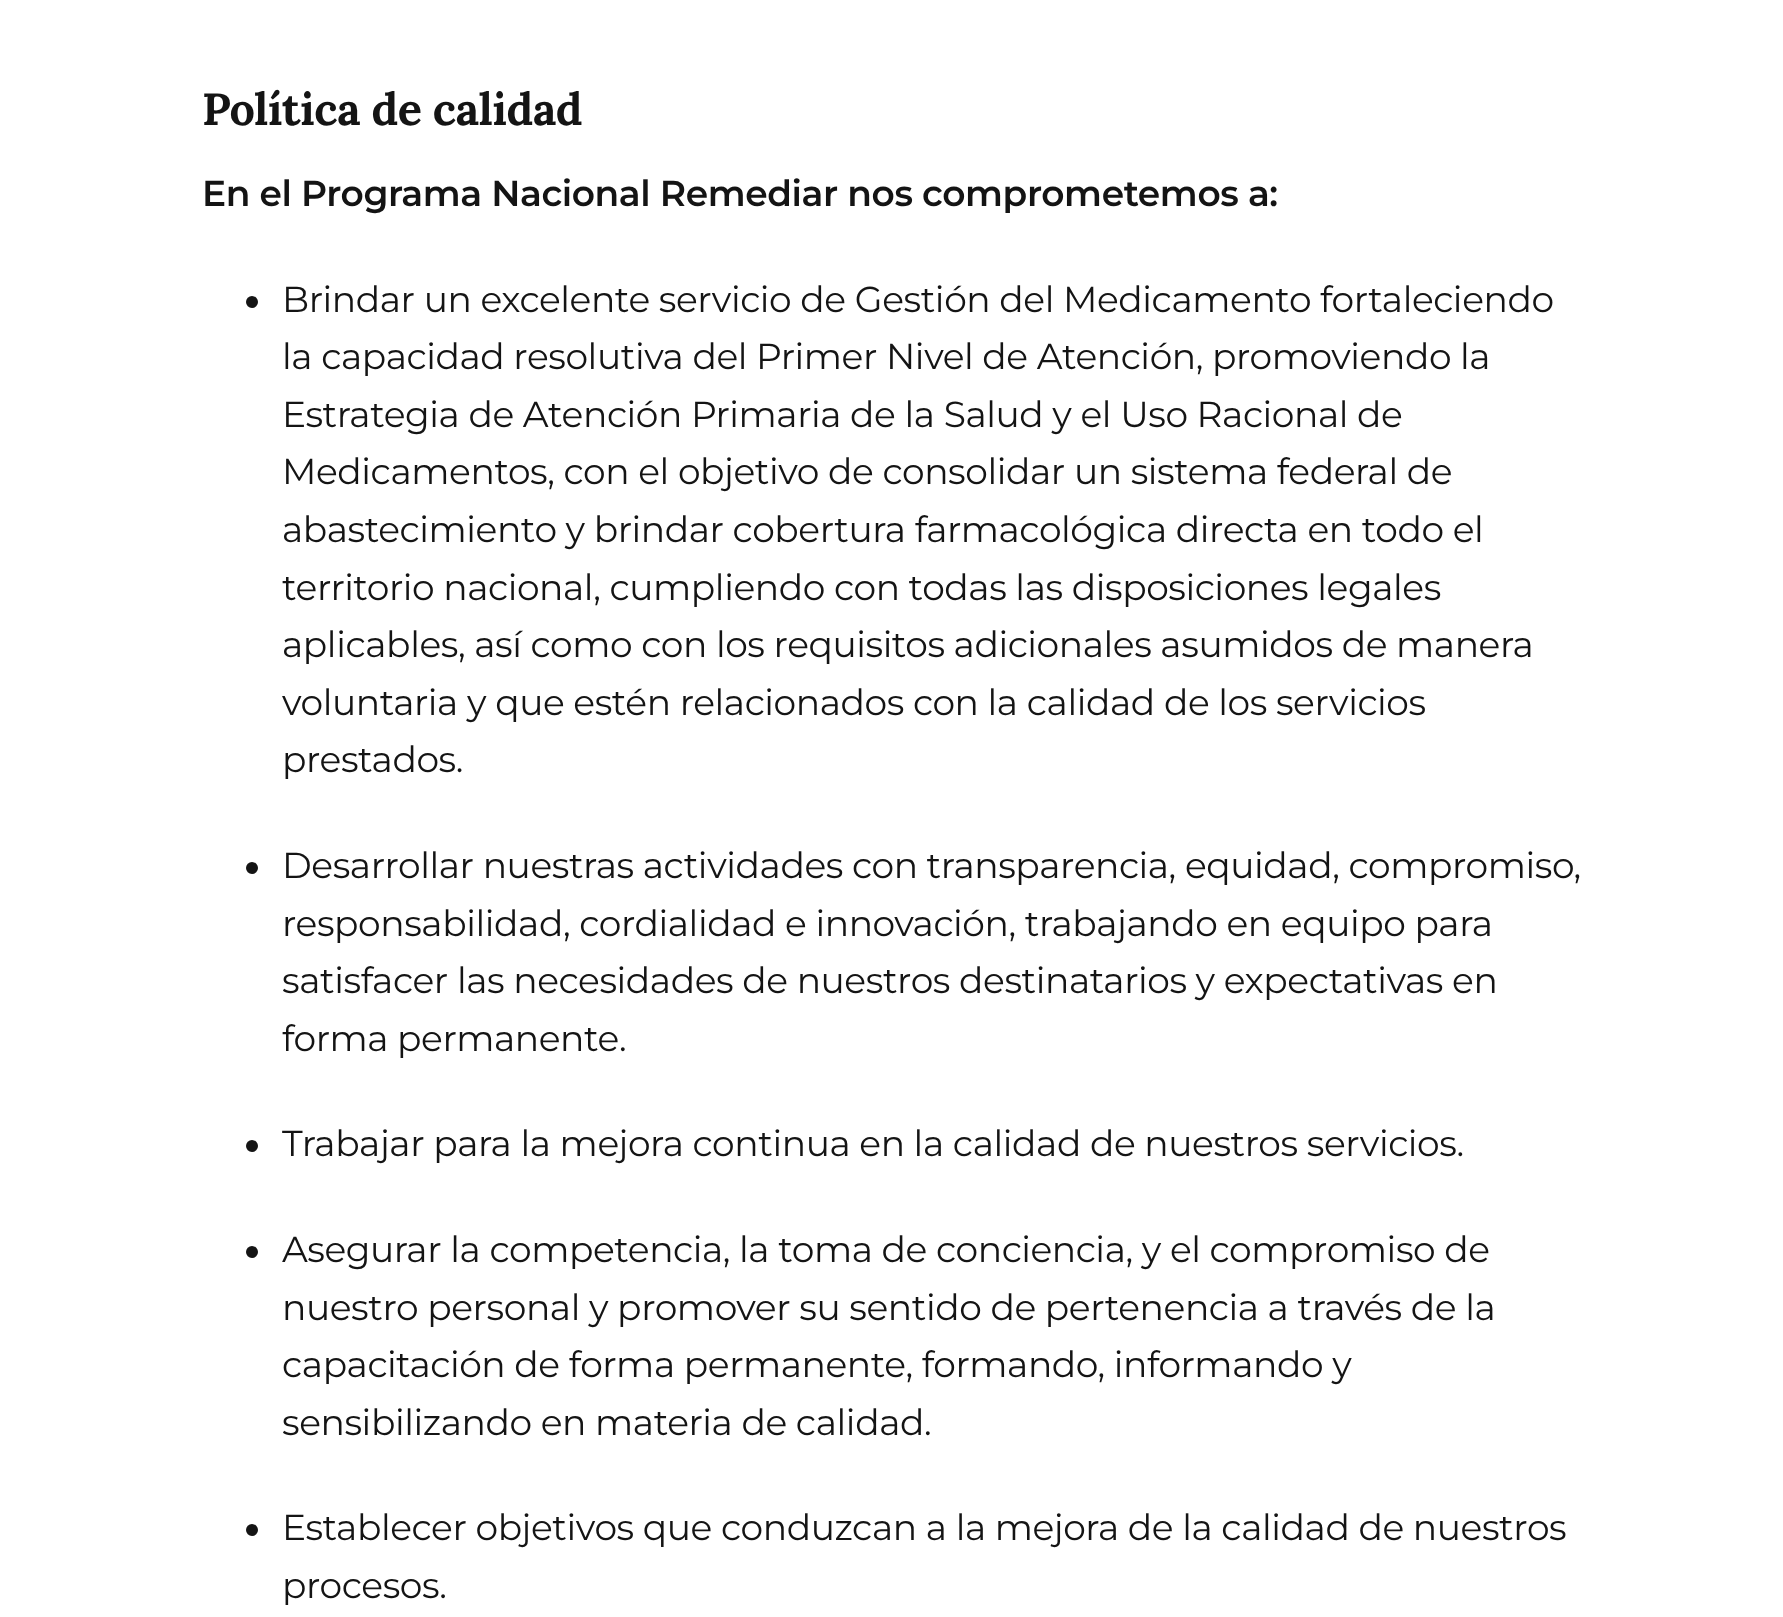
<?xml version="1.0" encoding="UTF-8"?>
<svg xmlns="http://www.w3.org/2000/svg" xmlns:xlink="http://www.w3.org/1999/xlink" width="1783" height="1617">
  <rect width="100%" height="100%" fill="#ffffff" />
  <circle cx="252" cy="302" r="6" fill="#141414" />
  <circle cx="252" cy="868" r="6" fill="#141414" />
  <circle cx="252" cy="1146" r="6" fill="#141414" />
  <circle cx="252" cy="1252" r="6" fill="#141414" />
  <circle cx="252" cy="1530" r="6" fill="#141414" />
  <text x="202" y="125" style="font-family: Lora; font-size: 45px; font-weight: bold; letter-spacing: -0.5px; fill: #141414">Política de calidad</text>
  <text x="202" y="206" style="font-family: Montserrat; font-size: 36px; font-weight: 600; letter-spacing: -0.4px; fill: #141414">En el Programa Nacional Remediar nos comprometemos a:</text>
  <text x="282" y="312" style="font-family: Montserrat; font-size: 36px; letter-spacing: -0.4px; fill: #141414">Brindar un excelente servicio de Gestión del Medicamento fortaleciendo</text>
  <text x="282" y="369" style="font-family: Montserrat; font-size: 36px; letter-spacing: -0.4px; fill: #141414">la capacidad resolutiva del Primer Nivel de Atención, promoviendo la</text>
  <text x="282" y="427" style="font-family: Montserrat; font-size: 36px; letter-spacing: -0.4px; fill: #141414">Estrategia de Atención Primaria de la Salud y el Uso Racional de</text>
  <text x="282" y="484" style="font-family: Montserrat; font-size: 36px; letter-spacing: -0.4px; fill: #141414">Medicamentos, con el objetivo de consolidar un sistema federal de</text>
  <text x="282" y="542" style="font-family: Montserrat; font-size: 36px; letter-spacing: -0.4px; fill: #141414">abastecimiento y brindar cobertura farmacológica directa en todo el</text>
  <text x="282" y="600" style="font-family: Montserrat; font-size: 36px; letter-spacing: -0.4px; fill: #141414">territorio nacional, cumpliendo con todas las disposiciones legales</text>
  <text x="282" y="657" style="font-family: Montserrat; font-size: 36px; letter-spacing: -0.4px; fill: #141414">aplicables, así como con los requisitos adicionales asumidos de manera</text>
  <text x="282" y="715" style="font-family: Montserrat; font-size: 36px; letter-spacing: -0.4px; fill: #141414">voluntaria y que estén relacionados con la calidad de los servicios</text>
  <text x="282" y="772" style="font-family: Montserrat; font-size: 36px; letter-spacing: -0.4px; fill: #141414">prestados.</text>
  <text x="282" y="878" style="font-family: Montserrat; font-size: 36px; letter-spacing: -0.4px; fill: #141414">Desarrollar nuestras actividades con transparencia, equidad, compromiso,</text>
  <text x="282" y="936" style="font-family: Montserrat; font-size: 36px; letter-spacing: -0.4px; fill: #141414">responsabilidad, cordialidad e innovación, trabajando en equipo para</text>
  <text x="282" y="993" style="font-family: Montserrat; font-size: 36px; letter-spacing: -0.4px; fill: #141414">satisfacer las necesidades de nuestros destinatarios y expectativas en</text>
  <text x="282" y="1051" style="font-family: Montserrat; font-size: 36px; letter-spacing: -0.4px; fill: #141414">forma permanente.</text>
  <text x="282" y="1156" style="font-family: Montserrat; font-size: 36px; letter-spacing: -0.4px; fill: #141414">Trabajar para la mejora continua en la calidad de nuestros servicios.</text>
  <text x="282" y="1262" style="font-family: Montserrat; font-size: 36px; letter-spacing: -0.4px; fill: #141414">Asegurar la competencia, la toma de conciencia, y el compromiso de</text>
  <text x="282" y="1320" style="font-family: Montserrat; font-size: 36px; letter-spacing: -0.4px; fill: #141414">nuestro personal y promover su sentido de pertenencia a través de la</text>
  <text x="282" y="1377" style="font-family: Montserrat; font-size: 36px; letter-spacing: -0.4px; fill: #141414">capacitación de forma permanente, formando, informando y</text>
  <text x="282" y="1435" style="font-family: Montserrat; font-size: 36px; letter-spacing: -0.4px; fill: #141414">sensibilizando en materia de calidad.</text>
  <text x="282" y="1540" style="font-family: Montserrat; font-size: 36px; letter-spacing: -0.4px; fill: #141414">Establecer objetivos que conduzcan a la mejora de la calidad de nuestros</text>
  <text x="282" y="1598" style="font-family: Montserrat; font-size: 36px; letter-spacing: -0.4px; fill: #141414">procesos.</text>
</svg>
